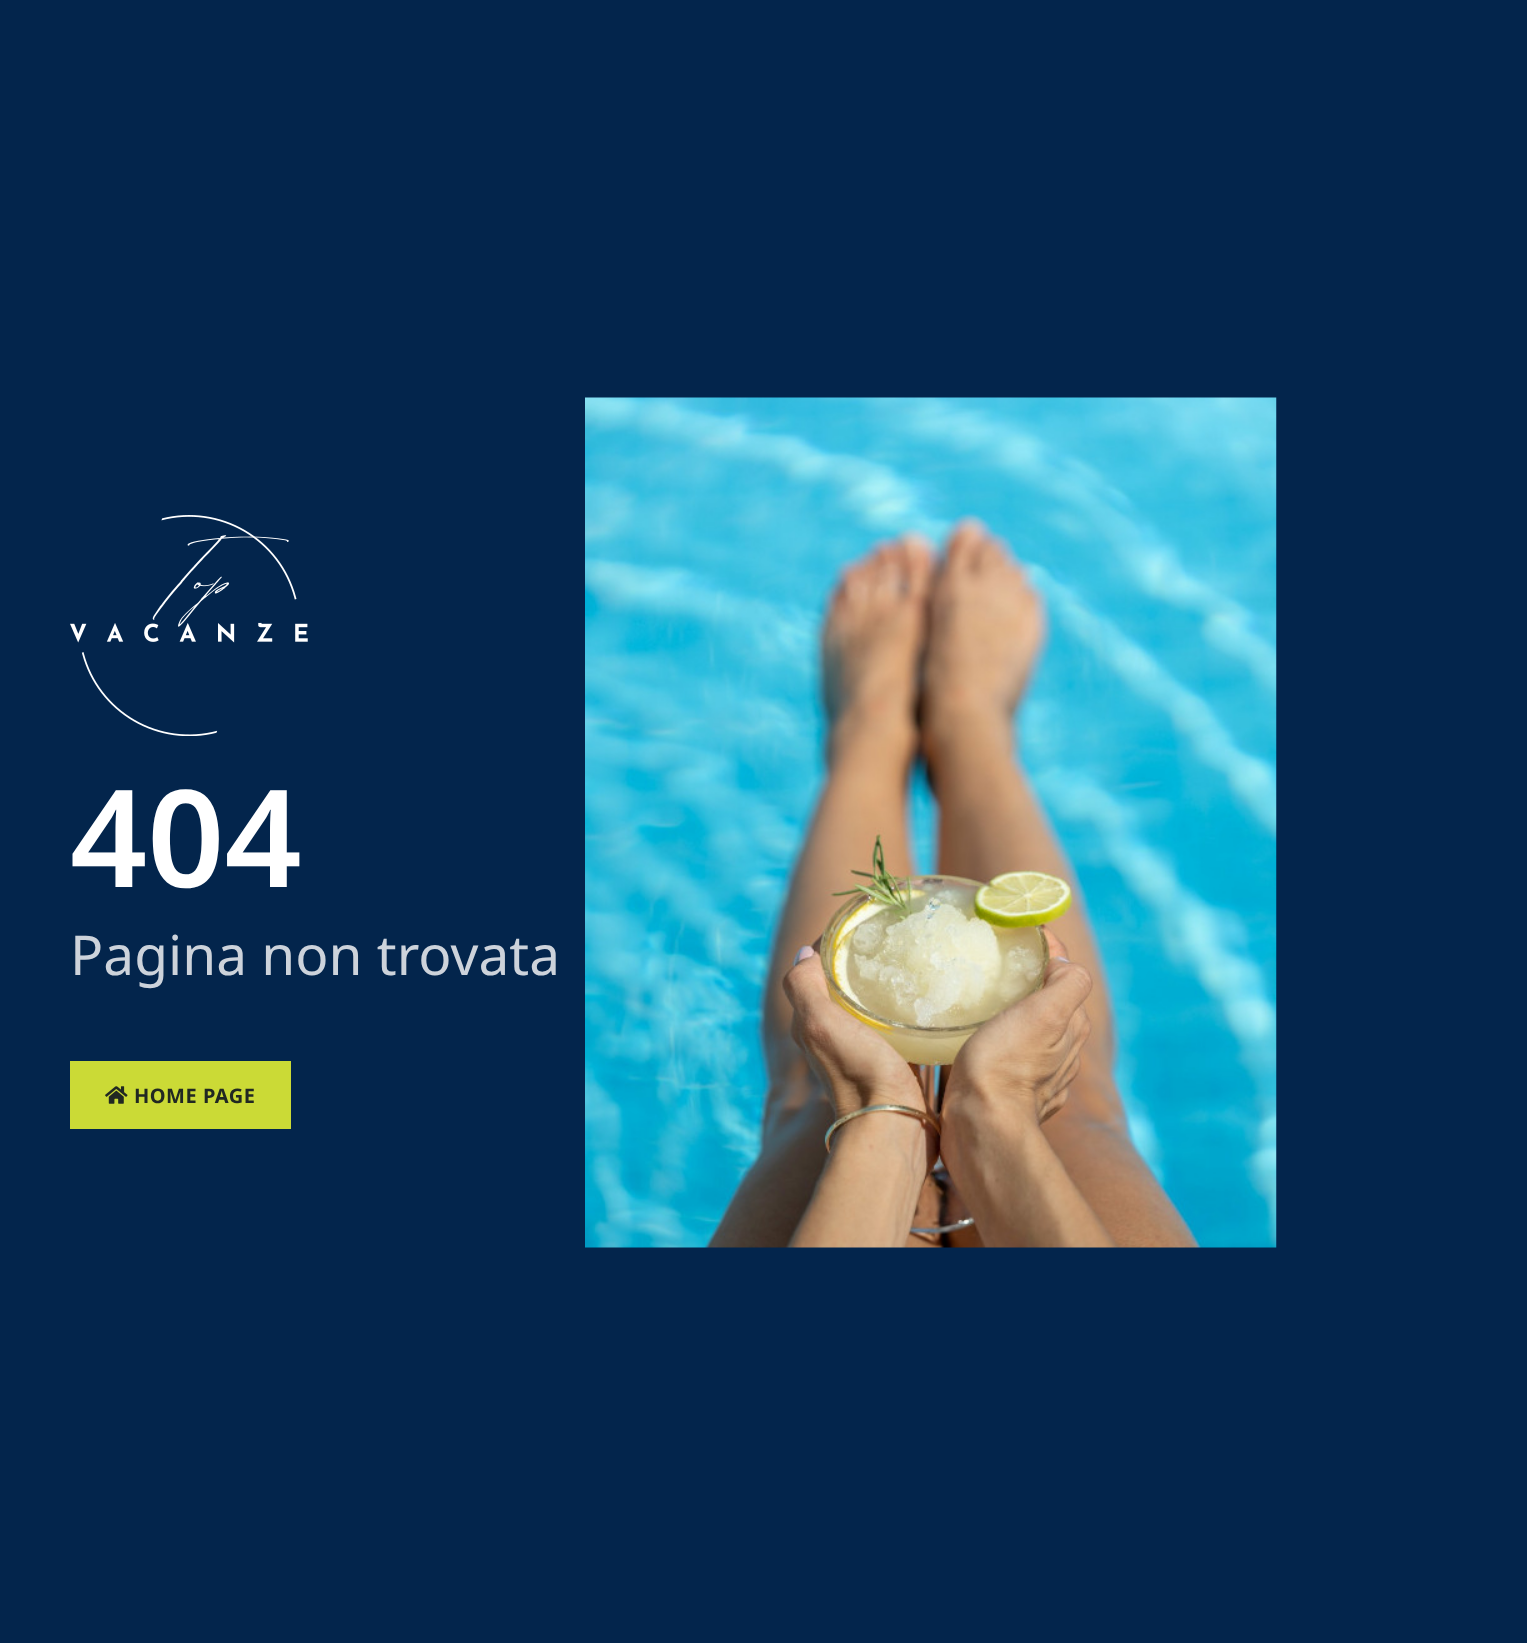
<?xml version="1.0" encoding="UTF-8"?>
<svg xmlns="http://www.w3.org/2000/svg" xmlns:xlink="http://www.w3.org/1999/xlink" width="1527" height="1643">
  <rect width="100%" height="100%" fill="#03254c" />
  <image x="585" y="397" width="692" height="851" xlink:href="image1.png" />
  <image x="70" y="515" width="238" height="221" xlink:href="image2.png" />
  <rect x="70" y="1061" width="221" height="68" fill="#cbda36" />
  <image x="105" y="1086" width="23" height="18" xlink:href="image3.png" />
  <text x="70" y="887" style="font-family: Noto Sans; font-size: 135px; font-weight: 600; fill: #ffffff">404</text>
  <text x="70" y="975" style="font-family: Noto Sans; font-size: 55px; fill: #cdd3db">Pagina non trovata</text>
  <text x="134" y="1103" style="font-family: Noto Sans; font-size: 20px; font-weight: bold; letter-spacing: 0.5px; fill: #212822">HOME PAGE</text>
</svg>
